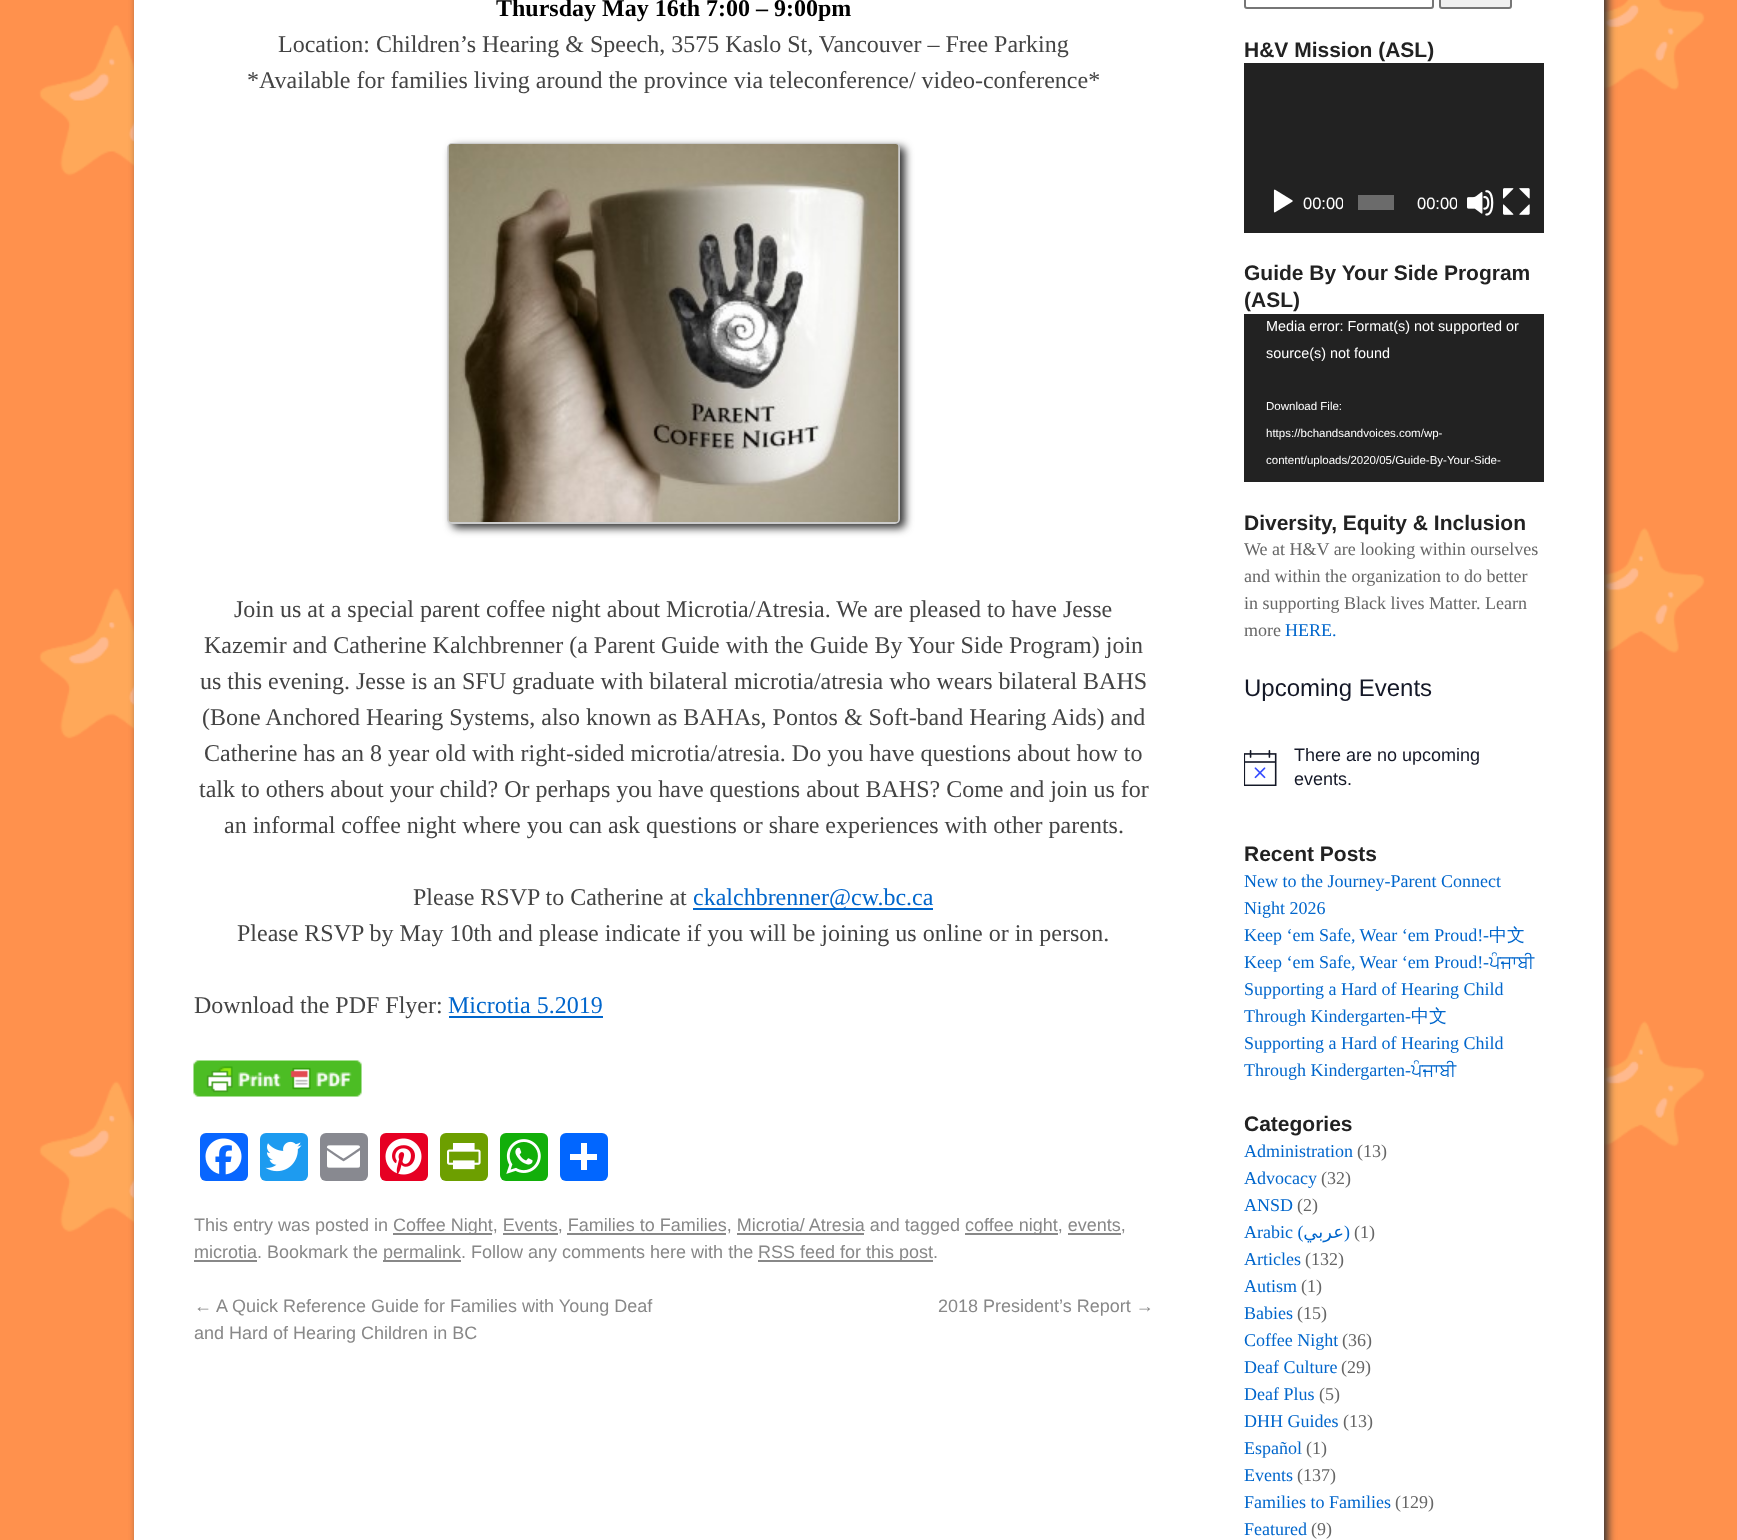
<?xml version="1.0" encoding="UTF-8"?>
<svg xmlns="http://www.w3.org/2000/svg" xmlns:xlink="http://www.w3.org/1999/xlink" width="1737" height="1540">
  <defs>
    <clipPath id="clip1"><rect x="1295" y="173" width="48" height="60" /></clipPath>
    <clipPath id="clip2"><rect x="1409" y="173" width="48" height="60" /></clipPath>
    <clipPath id="clip3"><rect x="1244" width="330" height="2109" /></clipPath>
  </defs>
  <rect width="100%" height="100%" fill="#ffffff" />
  <image x="0" y="0" width="1737" height="1540" xlink:href="image1.png" />
  <rect x="138" y="-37" width="1470" height="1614" rx="23" fill="#333333" filter="blur(4.5px)" />
  <rect x="134" width="1470" height="1540" fill="#ffffff" />
  <rect x="452" y="147" width="453" height="381" rx="5" fill="#333333" filter="blur(4px)" />
  <rect x="448" y="144" width="451" height="379" rx="4" fill="none" stroke="#cccccc" stroke-width="2" />
  <image x="448" y="144" width="451" height="378" xlink:href="image2.png" />
  <rect x="693" y="908" width="240" height="2" fill="#0066cc" />
  <rect x="449" y="1016" width="154" height="2" fill="#0066cc" />
  <image x="193" y="1060" width="169" height="37" xlink:href="image3.png" />
  <rect x="200" y="1133" width="48" height="48" rx="6" fill="#0866ff" />
  <image x="205" y="1138" width="37" height="37" xlink:href="image4.png" />
  <rect x="260" y="1133" width="48" height="48" rx="6" fill="#1d9bf0" />
  <image x="265" y="1141" width="37" height="31" xlink:href="image5.png" />
  <rect x="320" y="1133" width="48" height="48" rx="6" fill="#888990" />
  <image x="327" y="1145" width="33" height="23" xlink:href="image6.png" />
  <rect x="380" y="1133" width="48" height="48" rx="6" fill="#e60023" />
  <image x="385" y="1138" width="37" height="37" xlink:href="image7.png" />
  <rect x="440" y="1133" width="48" height="48" rx="6" fill="#6d9f00" />
  <image x="447" y="1143" width="34" height="27" xlink:href="image8.png" />
  <rect x="500" y="1133" width="48" height="48" rx="6" fill="#12af0a" />
  <image x="506" y="1139" width="35" height="35" xlink:href="image9.png" />
  <rect x="560" y="1133" width="48" height="48" rx="6" fill="#0166ff" />
  <rect x="581" y="1143" width="6" height="27" fill="#ffffff" />
  <rect x="570" y="1154" width="27" height="6" fill="#ffffff" />
  <rect x="393" y="1233" width="99" height="2" fill="#888888" />
  <rect x="965" y="1233" width="93" height="2" fill="#888888" />
  <rect x="503" y="1233" width="55" height="2" fill="#888888" />
  <rect x="567" y="1233" width="159" height="2" fill="#888888" />
  <rect x="737" y="1233" width="127" height="2" fill="#888888" />
  <rect x="1068" y="1233" width="53" height="2" fill="#888888" />
  <rect x="194" y="1260" width="63" height="2" fill="#888888" />
  <rect x="383" y="1260" width="78" height="2" fill="#888888" />
  <rect x="758" y="1260" width="175" height="2" fill="#888888" />
  <rect x="1245" y="-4" width="188" height="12" rx="2" fill="none" stroke="#767676" stroke-width="2" />
  <rect x="1440" y="-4" width="71" height="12" rx="2" fill="#efefef" stroke="#767676" stroke-width="2" />
  <rect x="1244" y="63" width="300" height="170" fill="#222222" />
  <image x="1273" y="189" width="20" height="24" xlink:href="image10.png" />
  <rect x="1358" y="195" width="36" height="15" fill="#6b6b6b" />
  <image x="1467" y="190" width="27" height="26" xlink:href="image11.png" />
  <image x="1503" y="188" width="27" height="27" xlink:href="image12.png" />
  <rect x="1244" y="314" width="300" height="168" fill="#222222" />
  <image x="1244" y="750" width="33" height="36" xlink:href="image13.png" />
  <text x="496" y="16" style="font-family: Liberation Serif; font-size: 24px; font-weight: bold; fill: #000000">Thursday May 16th 7:00 – 9:00pm</text>
  <text x="278" y="52" style="font-family: Liberation Serif; font-size: 24px; fill: #444444">Location: Children’s Hearing &amp; Speech, 3575 Kaslo St, Vancouver – Free Parking</text>
  <text x="247" y="88" style="font-family: Liberation Serif; font-size: 24px; fill: #444444">*Available for families living around the province via teleconference/ video-conference*</text>
  <text x="234" y="617" style="font-family: Liberation Serif; font-size: 24px; fill: #444444">Join us at a special parent coffee night about Microtia/Atresia. We are pleased to have Jesse</text>
  <text x="204" y="653" style="font-family: Liberation Serif; font-size: 24px; fill: #444444">Kazemir and Catherine Kalchbrenner (a Parent Guide with the Guide By Your Side Program) join</text>
  <text x="200" y="689" style="font-family: Liberation Serif; font-size: 24px; fill: #444444">us this evening. Jesse is an SFU graduate with bilateral microtia/atresia who wears bilateral BAHS</text>
  <text x="202" y="725" style="font-family: Liberation Serif; font-size: 24px; fill: #444444">(Bone Anchored Hearing Systems, also known as BAHAs, Pontos &amp; Soft-band Hearing Aids) and</text>
  <text x="204" y="761" style="font-family: Liberation Serif; font-size: 24px; fill: #444444">Catherine has an 8 year old with right-sided microtia/atresia. Do you have questions about how to</text>
  <text x="199" y="797" style="font-family: Liberation Serif; font-size: 24px; fill: #444444">talk to others about your child? Or perhaps you have questions about BAHS? Come and join us for</text>
  <text x="224" y="833" style="font-family: Liberation Serif; font-size: 24px; fill: #444444">an informal coffee night where you can ask questions or share experiences with other parents.</text>
  <text x="413" y="905" style="font-family: Liberation Serif; font-size: 24px; fill: #444444">Please RSVP to Catherine at</text>
  <text x="693" y="905" style="font-family: Liberation Serif; font-size: 24px; fill: #0066cc">ckalchbrenner@cw.bc.ca</text>
  <text x="237" y="941" style="font-family: Liberation Serif; font-size: 24px; fill: #444444">Please RSVP by May 10th and please indicate if you will be joining us online or in person.</text>
  <text x="194" y="1013" style="font-family: Liberation Serif; font-size: 24px; fill: #444444">Download the PDF Flyer:</text>
  <text x="448" y="1013" style="font-family: Liberation Serif; font-size: 24px; fill: #0066cc">Microtia 5.2019</text>
  <text x="194" y="1231" style="font-family: Liberation Sans; font-size: 18px; fill: #888888">This entry was posted in</text>
  <text x="393" y="1231" style="font-family: Liberation Sans; font-size: 18px; fill: #888888">Coffee Night, Events, Families to Families, Microtia/ Atresia and tagged</text>
  <text x="965" y="1231" style="font-family: Liberation Sans; font-size: 18px; fill: #888888">coffee night, events,</text>
  <text x="194" y="1258" style="font-family: Liberation Sans; font-size: 18px; fill: #888888">microtia. Bookmark the</text>
  <text x="383" y="1258" style="font-family: Liberation Sans; font-size: 18px; fill: #888888">permalink. Follow any comments here with the</text>
  <text x="758" y="1258" style="font-family: Liberation Sans; font-size: 18px; fill: #888888">RSS feed for this post.</text>
  <text x="194" y="1312" style="font-family: Liberation Sans; font-size: 18px; fill: #888888">←</text>
  <text x="216" y="1312" style="font-family: Liberation Sans; font-size: 18px; fill: #888888">A Quick Reference Guide for Families with Young Deaf</text>
  <text x="194" y="1339" style="font-family: Liberation Sans; font-size: 18px; fill: #888888">and Hard of Hearing Children in BC</text>
  <text x="938" y="1312" style="font-family: Liberation Sans; font-size: 18px; fill: #888888">2018 President’s Report →</text>
  <text x="1244" y="57" style="font-family: Liberation Sans; font-size: 21px; font-weight: bold; fill: #222222">H&amp;V Mission (ASL)</text>
  <g clip-path="url(#clip1)">
    <text x="1303" y="209" style="font-family: Liberation Sans; font-size: 16.5px; fill: #ffffff">00:00</text>
  </g>
  <g clip-path="url(#clip2)">
    <text x="1417" y="209" style="font-family: Liberation Sans; font-size: 16.5px; fill: #ffffff">00:00</text>
  </g>
  <text x="1244" y="280" style="font-family: Liberation Sans; font-size: 21px; font-weight: bold; fill: #222222">Guide By Your Side Program</text>
  <text x="1244" y="307" style="font-family: Liberation Sans; font-size: 21px; font-weight: bold; fill: #222222">(ASL)</text>
  <text x="1266" y="331" style="font-family: Liberation Sans; font-size: 14.4px; fill: #ffffff">Media error: Format(s) not supported or</text>
  <text x="1266" y="358" style="font-family: Liberation Sans; font-size: 14.4px; fill: #ffffff">source(s) not found</text>
  <text x="1266" y="410" style="font-family: Liberation Sans; font-size: 11.5px; fill: #ffffff">Download File:</text>
  <text x="1266" y="437" style="font-family: Liberation Sans; font-size: 11.5px; fill: #ffffff">https://bchandsandvoices.com/wp-</text>
  <text x="1266" y="464" style="font-family: Liberation Sans; font-size: 11.5px; fill: #ffffff">content/uploads/2020/05/Guide-By-Your-Side-</text>
  <text x="1244" y="530" style="font-family: Liberation Sans; font-size: 21px; font-weight: bold; fill: #222222">Diversity, Equity &amp; Inclusion</text>
  <text x="1244" y="555" style="font-family: Liberation Serif; font-size: 18px; fill: #666666">We at H&amp;V are looking within ourselves</text>
  <text x="1244" y="582" style="font-family: Liberation Serif; font-size: 18px; fill: #666666">and within the organization to do better</text>
  <text x="1244" y="609" style="font-family: Liberation Serif; font-size: 18px; fill: #666666">in supporting Black lives Matter. Learn</text>
  <text x="1244" y="636" style="font-family: Liberation Serif; font-size: 18px; fill: #666666">more</text>
  <text x="1285" y="636" style="font-family: Liberation Serif; font-size: 18px; fill: #0066cc">HERE.</text>
  <text x="1244" y="696" style="font-family: Liberation Sans; font-size: 24px; fill: #141827">Upcoming Events</text>
  <text x="1294" y="761" style="font-family: Liberation Sans; font-size: 18px; fill: #141827">There are no upcoming</text>
  <text x="1294" y="785" style="font-family: Liberation Sans; font-size: 18px; fill: #141827">events.</text>
  <text x="1244" y="861" style="font-family: Liberation Sans; font-size: 21px; font-weight: bold; fill: #222222">Recent Posts</text>
  <text x="1244" y="887" style="font-family: Liberation Serif; font-size: 18px; fill: #0066cc">New to the Journey-Parent Connect</text>
  <text x="1244" y="914" style="font-family: Liberation Serif; font-size: 18px; fill: #0066cc">Night 2026</text>
  <text x="1244" y="941" style="font-family: Liberation Serif; font-size: 18px; fill: #0066cc">Keep ‘em Safe, Wear ‘em Proud!-</text>
  <text x="1489" y="941" style="font-family: WenQuanYi Zen Hei; font-size: 18px; font-weight: 500; fill: #0066cc">中文</text>
  <text x="1244" y="968" style="font-family: Liberation Serif; font-size: 18px; fill: #0066cc">Keep ‘em Safe, Wear ‘em Proud!-</text>
  <text x="1489" y="968" style="font-family: FreeSans; font-size: 18px; fill: #0066cc">ਪੰਜਾਬੀ</text>
  <text x="1244" y="995" style="font-family: Liberation Serif; font-size: 18px; fill: #0066cc">Supporting a Hard of Hearing Child</text>
  <g clip-path="url(#clip3)">
    <text x="1244" y="1022" style="font-family: Liberation Serif; font-size: 18px; fill: #0066cc">Through Kindergarten-</text>
  </g>
  <text x="1411" y="1022" style="font-family: WenQuanYi Zen Hei; font-size: 18px; font-weight: 500; fill: #0066cc">中文</text>
  <text x="1244" y="1049" style="font-family: Liberation Serif; font-size: 18px; fill: #0066cc">Supporting a Hard of Hearing Child</text>
  <g clip-path="url(#clip3)">
    <text x="1244" y="1076" style="font-family: Liberation Serif; font-size: 18px; fill: #0066cc">Through Kindergarten-</text>
  </g>
  <text x="1411" y="1076" style="font-family: FreeSans; font-size: 18px; fill: #0066cc">ਪੰਜਾਬੀ</text>
  <text x="1244" y="1131" style="font-family: Liberation Sans; font-size: 21px; font-weight: bold; fill: #222222">Categories</text>
  <text x="1244" y="1157" style="font-family: Liberation Serif; font-size: 18px; fill: #0066cc">Administration</text>
  <text x="1357" y="1157" style="font-family: Liberation Serif; font-size: 18px; fill: #666666">(13)</text>
  <text x="1244" y="1184" style="font-family: Liberation Serif; font-size: 18px; fill: #0066cc">Advocacy</text>
  <text x="1321" y="1184" style="font-family: Liberation Serif; font-size: 18px; fill: #666666">(32)</text>
  <text x="1244" y="1211" style="font-family: Liberation Serif; font-size: 18px; fill: #0066cc">ANSD</text>
  <text x="1297" y="1211" style="font-family: Liberation Serif; font-size: 18px; fill: #666666">(2)</text>
  <text x="1244" y="1238" style="font-family: Liberation Serif; font-size: 18px; fill: #0066cc">Arabic (</text>
  <text x="1344" y="1238" style="font-family: DejaVu Sans; font-size: 18px; direction: rtl; fill: #0066cc">عربي</text>
  <text x="1344" y="1238" style="font-family: Liberation Serif; font-size: 18px; fill: #0066cc">)</text>
  <text x="1354" y="1238" style="font-family: Liberation Serif; font-size: 18px; fill: #666666">(1)</text>
  <text x="1244" y="1265" style="font-family: Liberation Serif; font-size: 18px; fill: #0066cc">Articles</text>
  <text x="1305" y="1265" style="font-family: Liberation Serif; font-size: 18px; fill: #666666">(132)</text>
  <text x="1244" y="1292" style="font-family: Liberation Serif; font-size: 18px; fill: #0066cc">Autism</text>
  <text x="1301" y="1292" style="font-family: Liberation Serif; font-size: 18px; fill: #666666">(1)</text>
  <text x="1244" y="1319" style="font-family: Liberation Serif; font-size: 18px; fill: #0066cc">Babies</text>
  <text x="1297" y="1319" style="font-family: Liberation Serif; font-size: 18px; fill: #666666">(15)</text>
  <text x="1244" y="1346" style="font-family: Liberation Serif; font-size: 18px; fill: #0066cc">Coffee Night</text>
  <text x="1342" y="1346" style="font-family: Liberation Serif; font-size: 18px; fill: #666666">(36)</text>
  <text x="1244" y="1373" style="font-family: Liberation Serif; font-size: 18px; fill: #0066cc">Deaf Culture</text>
  <text x="1341" y="1373" style="font-family: Liberation Serif; font-size: 18px; fill: #666666">(29)</text>
  <text x="1244" y="1400" style="font-family: Liberation Serif; font-size: 18px; fill: #0066cc">Deaf Plus</text>
  <text x="1319" y="1400" style="font-family: Liberation Serif; font-size: 18px; fill: #666666">(5)</text>
  <text x="1244" y="1427" style="font-family: Liberation Serif; font-size: 18px; fill: #0066cc">DHH Guides</text>
  <text x="1343" y="1427" style="font-family: Liberation Serif; font-size: 18px; fill: #666666">(13)</text>
  <text x="1244" y="1454" style="font-family: Liberation Serif; font-size: 18px; fill: #0066cc">Español</text>
  <text x="1306" y="1454" style="font-family: Liberation Serif; font-size: 18px; fill: #666666">(1)</text>
  <text x="1244" y="1481" style="font-family: Liberation Serif; font-size: 18px; fill: #0066cc">Events</text>
  <text x="1297" y="1481" style="font-family: Liberation Serif; font-size: 18px; fill: #666666">(137)</text>
  <text x="1244" y="1508" style="font-family: Liberation Serif; font-size: 18px; fill: #0066cc">Families to Families</text>
  <text x="1395" y="1508" style="font-family: Liberation Serif; font-size: 18px; fill: #666666">(129)</text>
  <text x="1244" y="1535" style="font-family: Liberation Serif; font-size: 18px; fill: #0066cc">Featured</text>
  <text x="1311" y="1535" style="font-family: Liberation Serif; font-size: 18px; fill: #666666">(9)</text>
</svg>
